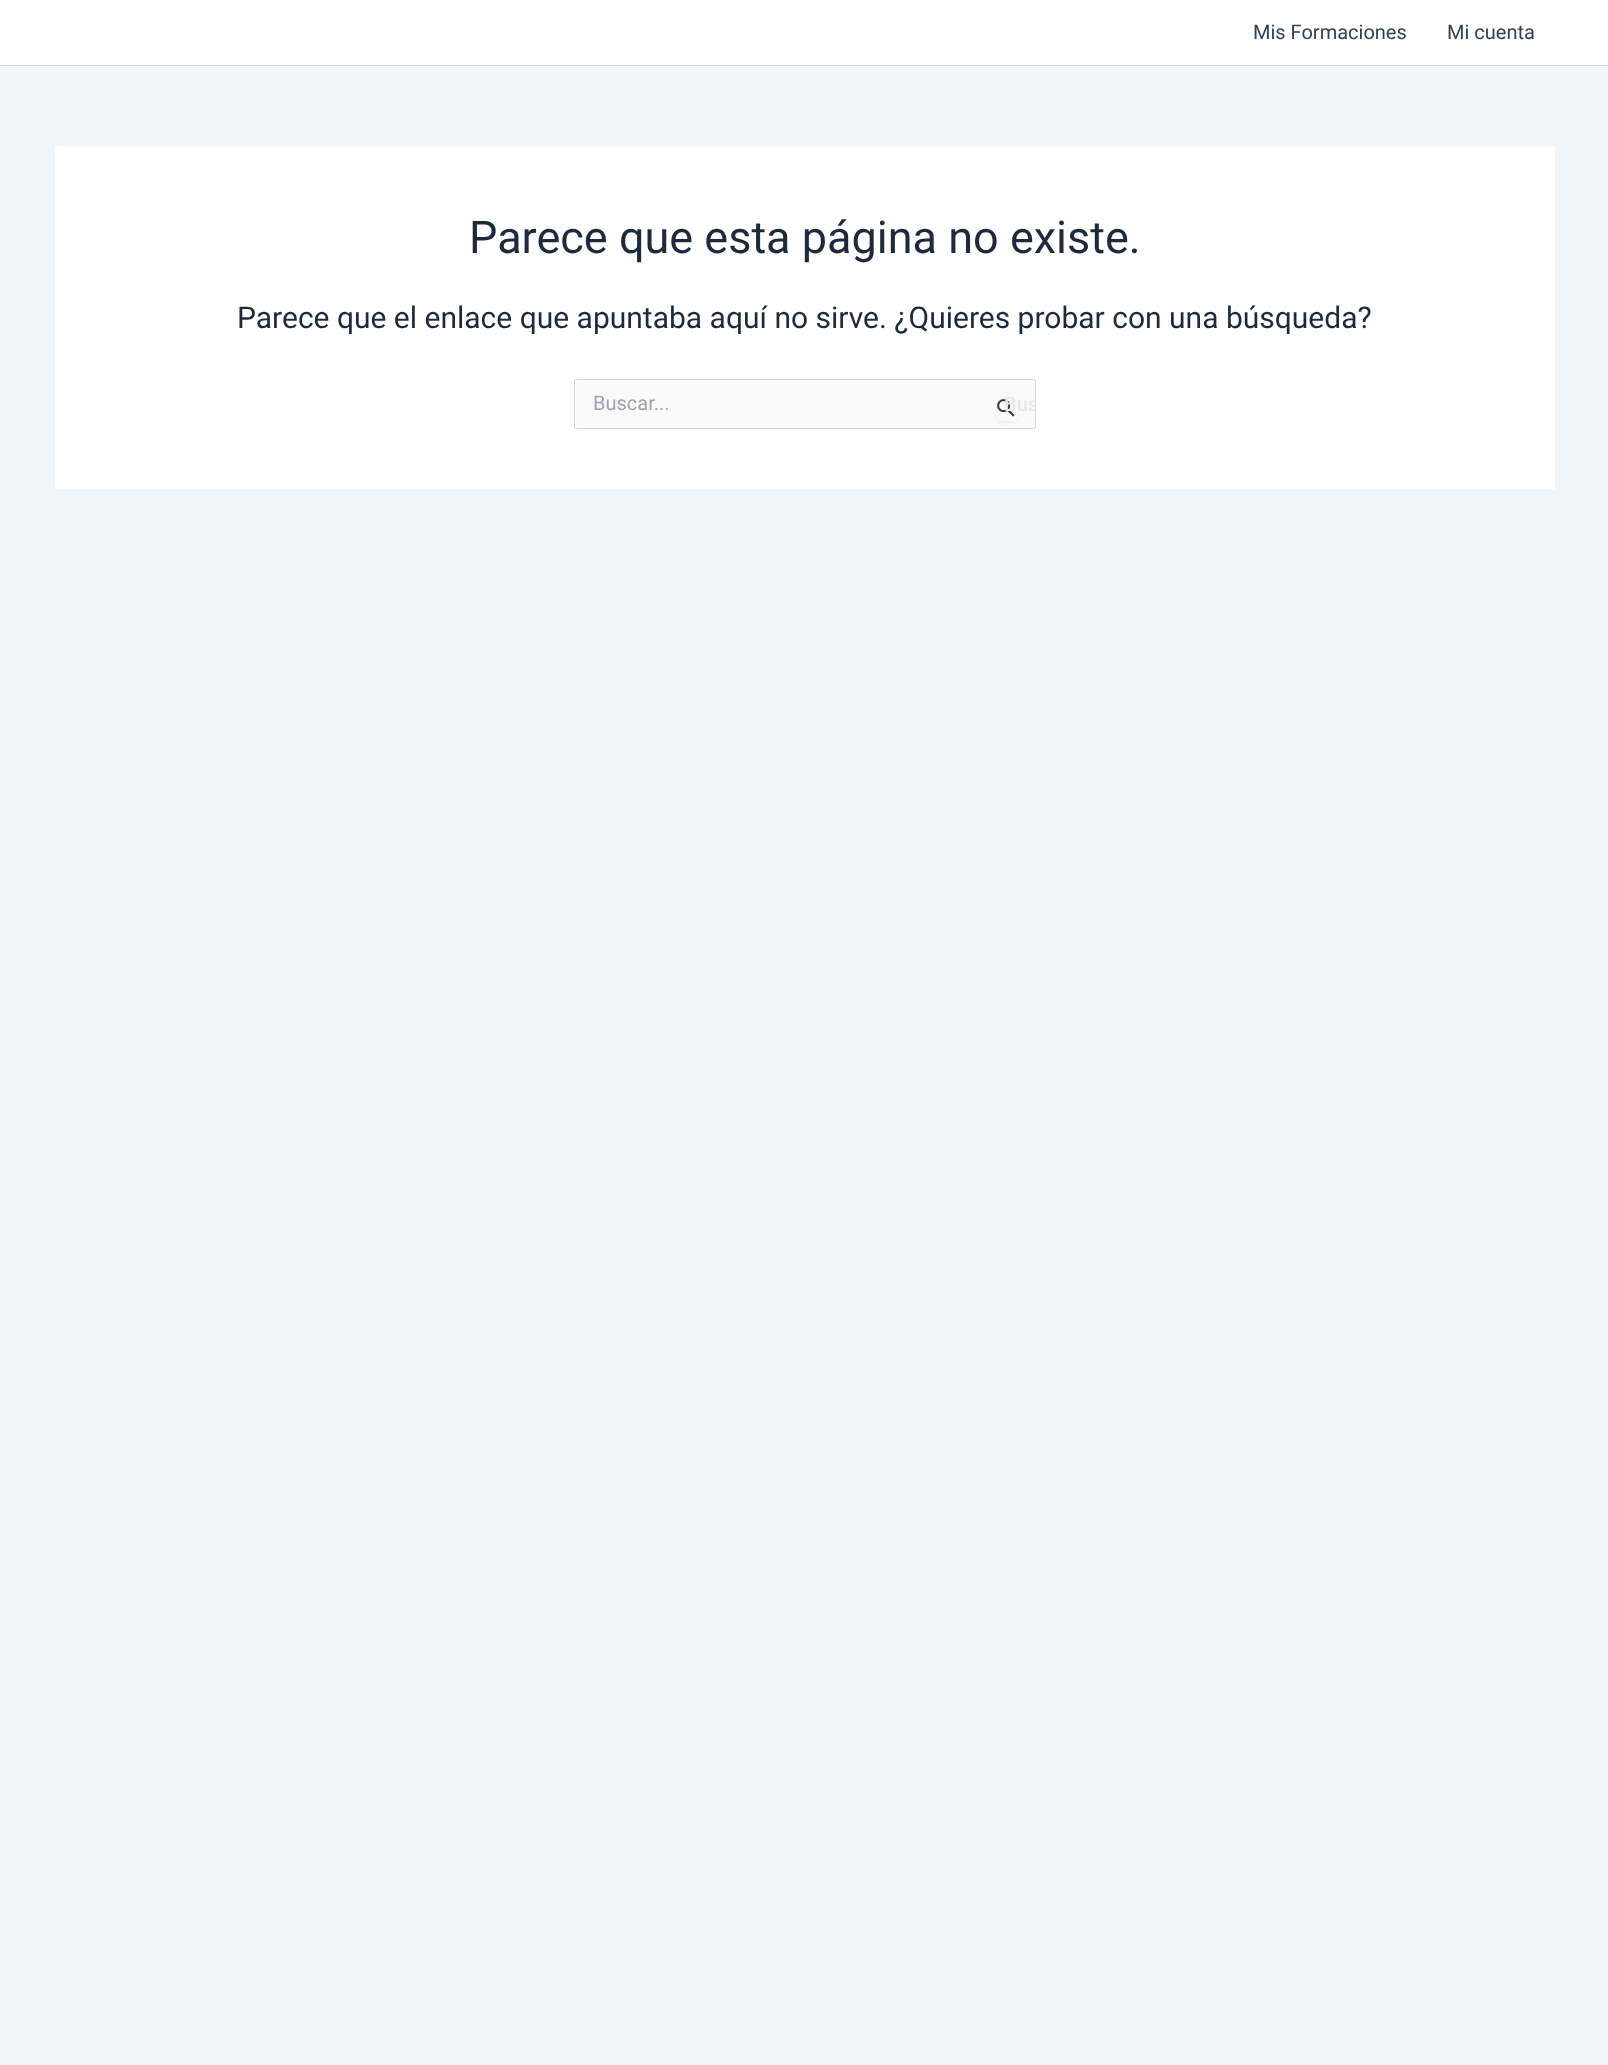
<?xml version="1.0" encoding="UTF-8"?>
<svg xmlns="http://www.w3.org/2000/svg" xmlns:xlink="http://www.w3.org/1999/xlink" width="1608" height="2065">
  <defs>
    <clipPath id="clip1"><path d="M 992 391 h 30 v 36 h -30 z m 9 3 h 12 c 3 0 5 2 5 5 v 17 c 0 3 -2 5 -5 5 h -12 c -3 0 -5 -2 -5 -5 v -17 c 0 -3 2 -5 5 -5 z" clip-rule="evenodd" /></clipPath>
    <clipPath id="clip2"><rect x="980" y="379" width="56" height="52" rx="2.5" /></clipPath>
  </defs>
  <rect width="100%" height="100%" fill="#f0f5fa" />
  <rect width="1608" height="65" fill="#ffffff" />
  <rect y="65" width="1608" height="1" fill="#d1d5db" />
  <rect x="55" y="146" width="1500" height="343" fill="#ffffff" />
  <rect x="574.5" y="379.5" width="461" height="49" rx="2" fill="#fafafa" stroke="#d1d5db" />
  <g clip-path="url(#clip1)">
    <rect x="996" y="395" width="22" height="28" rx="5" fill="#000000" fill-opacity="0.05" filter="blur(1px)" />
  </g>
  <image x="997" y="399" width="18" height="18" xlink:href="image1.png" />
  <text x="1253" y="39" style="font-family: Roboto; font-size: 20px; fill: #334155">Mis Formaciones</text>
  <text x="1447" y="39" style="font-family: Roboto; font-size: 20px; fill: #334155">Mi cuenta</text>
  <text x="469" y="253" style="font-family: Roboto; font-size: 45px; fill: #1e293b">Parece que esta página no existe.</text>
  <text x="237" y="328" style="font-family: Roboto; font-size: 30px; fill: #1e293b">Parece que el enlace que apuntaba aquí no sirve. ¿Quieres probar con una búsqueda?</text>
  <text x="593" y="410" style="font-family: Roboto; font-size: 20px; fill: #9ca3af">Buscar...</text>
  <g clip-path="url(#clip2)">
    <text x="1004" y="411" style="font-family: Roboto; font-size: 20px; font-weight: 500; fill: #e6e7e7">Bus</text>
  </g>
</svg>
